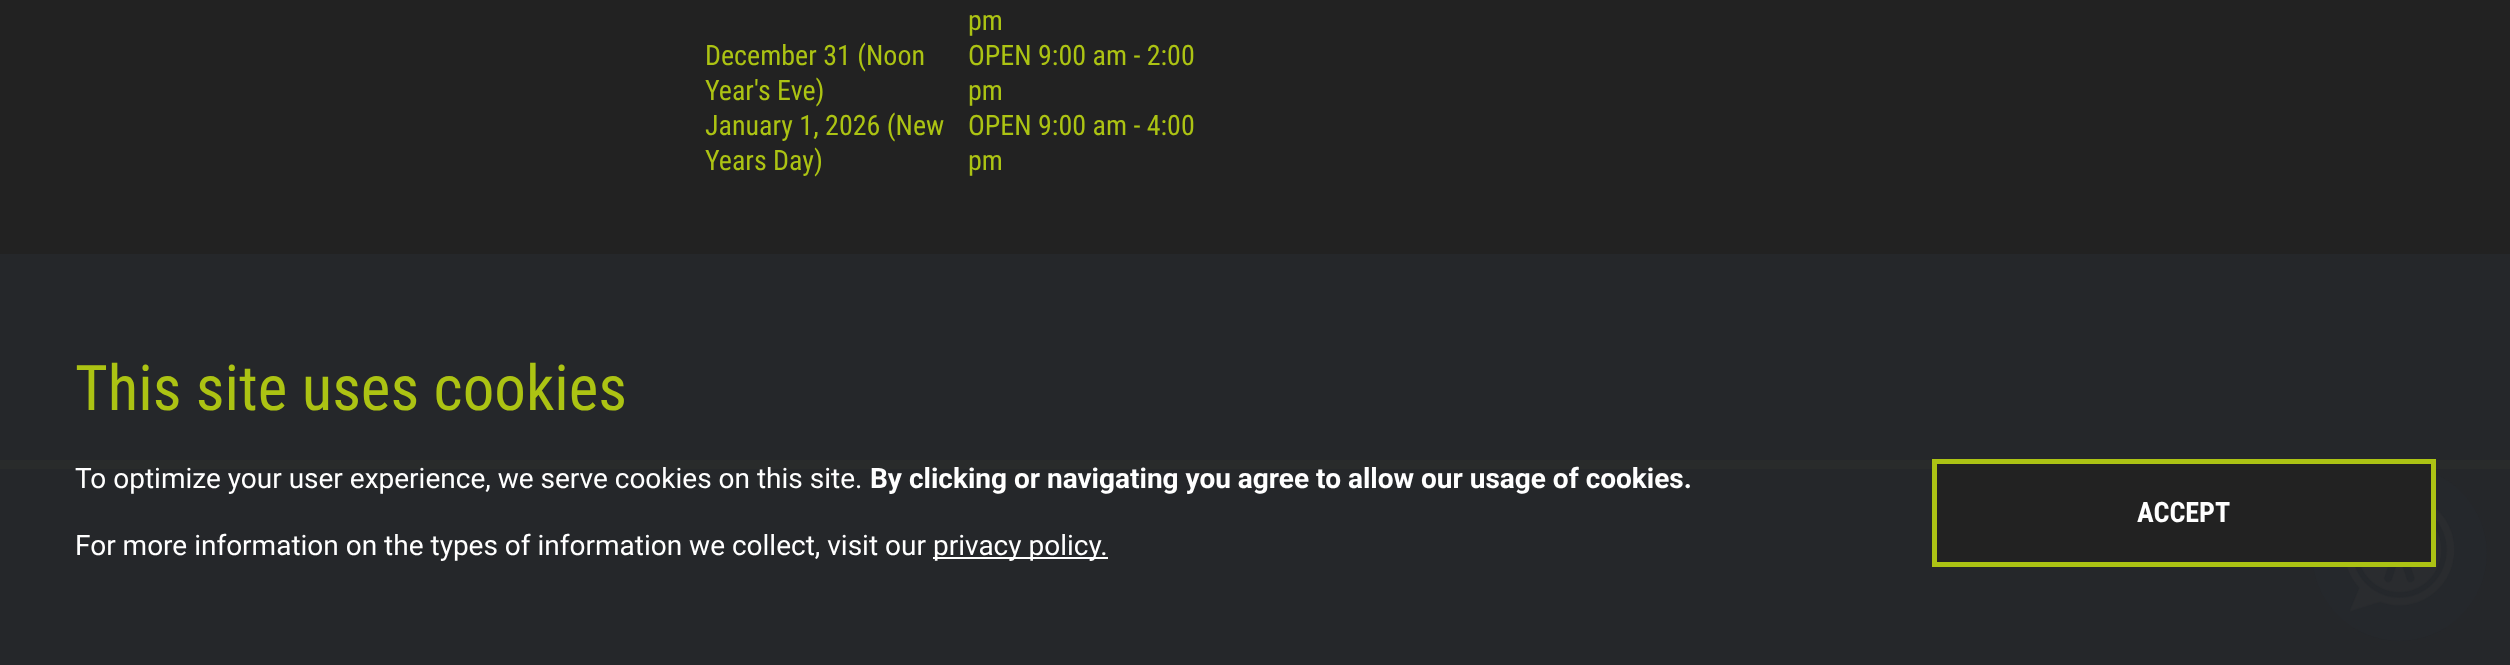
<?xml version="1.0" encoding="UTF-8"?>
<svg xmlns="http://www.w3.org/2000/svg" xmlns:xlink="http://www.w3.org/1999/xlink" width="2510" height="665">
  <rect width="100%" height="100%" fill="#25272a" />
  <rect width="2510" height="254" fill="#222222" />
  <rect y="460" width="2510" height="9" fill="#292b2b" />
  <rect x="933" y="557" width="175" height="2" fill="#ffffff" />
  <circle cx="2399.5" cy="553.5" r="87.5" fill="#25282c" />
  <image x="2347" y="508" width="108" height="104" xlink:href="image1.png" />
  <rect x="1934.5" y="461.5" width="499" height="103" fill="#222222" stroke="#acc314" stroke-width="5" />
  <text x="968" y="30" style="font-family: Roboto Condensed; font-size: 28px; fill: #acc313">pm</text>
  <text x="705" y="65" style="font-family: Roboto Condensed; font-size: 28px; fill: #acc313">December 31 (Noon</text>
  <text x="705" y="100" style="font-family: Roboto Condensed; font-size: 28px; fill: #acc313">Year's Eve)</text>
  <text x="968" y="65" style="font-family: Roboto Condensed; font-size: 28px; fill: #acc313">OPEN 9:00 am - 2:00</text>
  <text x="968" y="100" style="font-family: Roboto Condensed; font-size: 28px; fill: #acc313">pm</text>
  <text x="705" y="135" style="font-family: Roboto Condensed; font-size: 28px; fill: #acc313">January 1, 2026 (New</text>
  <text x="705" y="170" style="font-family: Roboto Condensed; font-size: 28px; fill: #acc313">Years Day)</text>
  <text x="968" y="135" style="font-family: Roboto Condensed; font-size: 28px; fill: #acc313">OPEN 9:00 am - 4:00</text>
  <text x="968" y="170" style="font-family: Roboto Condensed; font-size: 28px; fill: #acc313">pm</text>
  <text x="75" y="410" style="font-family: Roboto Condensed; font-size: 63px; fill: #acc313">This site uses cookies</text>
  <text x="75" y="488" style="font-family: Roboto; font-size: 28px; fill: #ffffff">To optimize your user experience, we serve cookies on this site.</text>
  <text x="870" y="488" style="font-family: Roboto; font-size: 28px; font-weight: bold; fill: #ffffff">By clicking or navigating you agree to allow our usage of cookies.</text>
  <text x="75" y="555" style="font-family: Roboto; font-size: 28px; fill: #ffffff">For more information on the types of information we collect, visit our</text>
  <text x="933" y="555" style="font-family: Roboto; font-size: 28px; fill: #ffffff">privacy policy.</text>
  <text x="2137" y="522" style="font-family: Roboto Condensed; font-size: 28px; font-weight: bold; fill: #ffffff">ACCEPT</text>
</svg>
